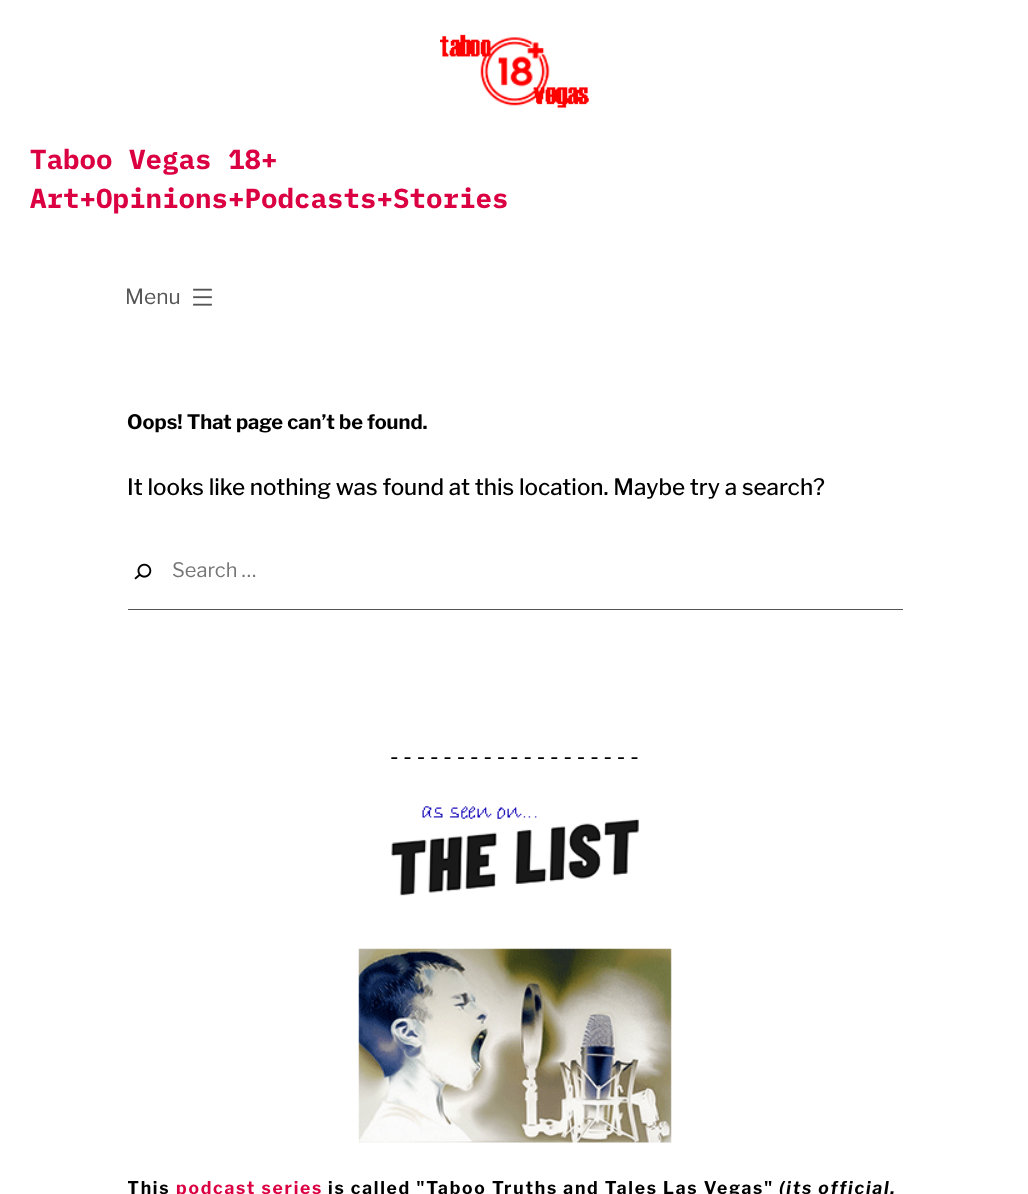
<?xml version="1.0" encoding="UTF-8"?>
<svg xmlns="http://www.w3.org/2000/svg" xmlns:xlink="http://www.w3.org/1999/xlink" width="1028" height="1194">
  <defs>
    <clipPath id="clip1"><rect x="128" y="678" width="775" height="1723" /></clipPath>
  </defs>
  <rect width="100%" height="100%" fill="#ffffff" />
  <image x="440" y="34" width="149" height="74" xlink:href="image1.png" />
  <image x="193" y="288" width="19" height="18" xlink:href="image2.png" />
  <rect x="128" y="609" width="775" height="1" fill="#555555" />
  <image x="134" y="563" width="18" height="17" xlink:href="image3.png" />
  <image x="391" y="806" width="248" height="90" xlink:href="image4.png" />
  <image x="358" y="948" width="314" height="195" xlink:href="image5.png" />
  <text x="30" y="169" style="font-family: IBM Plex Mono; font-size: 27.5px; font-weight: bold; fill: #db0042">Taboo Vegas 18+</text>
  <text x="30" y="208" style="font-family: IBM Plex Mono; font-size: 27.5px; font-weight: bold; fill: #db0042">Art+Opinions+Podcasts+Stories</text>
  <text x="125" y="304" style="font-family: Libre Franklin; font-size: 21px; fill: #555555">Menu</text>
  <text x="127" y="429" style="font-family: Libre Franklin; font-size: 20px; font-weight: bold; fill: #000000">Oops! That page can’t be found.</text>
  <text x="127" y="495" style="font-family: Libre Franklin; font-size: 22.5px; font-weight: 500; fill: #000000">It looks like nothing was found at this location. Maybe try a search?</text>
  <text x="172" y="577" style="font-family: Libre Franklin; font-size: 20px; fill: #757575">Search …</text>
  <text x="390" y="764" style="font-family: Libre Franklin; font-size: 22.5px; font-weight: 500; fill: #000000">- - - - - - - - - - - - - - - - - - -</text>
  <g clip-path="url(#clip1)">
    <text x="127" y="1194" style="font-family: Libre Franklin; font-size: 17.5px; font-weight: bold; letter-spacing: 1.75px; fill: #000000">This</text>
  </g>
  <text x="176" y="1194" style="font-family: Libre Franklin; font-size: 17.5px; font-weight: bold; letter-spacing: 1.75px; fill: #db0042">podcast series</text>
  <text x="328" y="1194" style="font-family: Libre Franklin; font-size: 17.5px; font-weight: bold; letter-spacing: 1.75px; fill: #000000">is called "Taboo Truths and Tales Las Vegas"</text>
  <text x="779" y="1194" style="font-family: Libre Franklin; font-size: 17.5px; font-weight: bold; font-style: italic; letter-spacing: 1.75px; fill: #000000">(its official,</text>
</svg>
